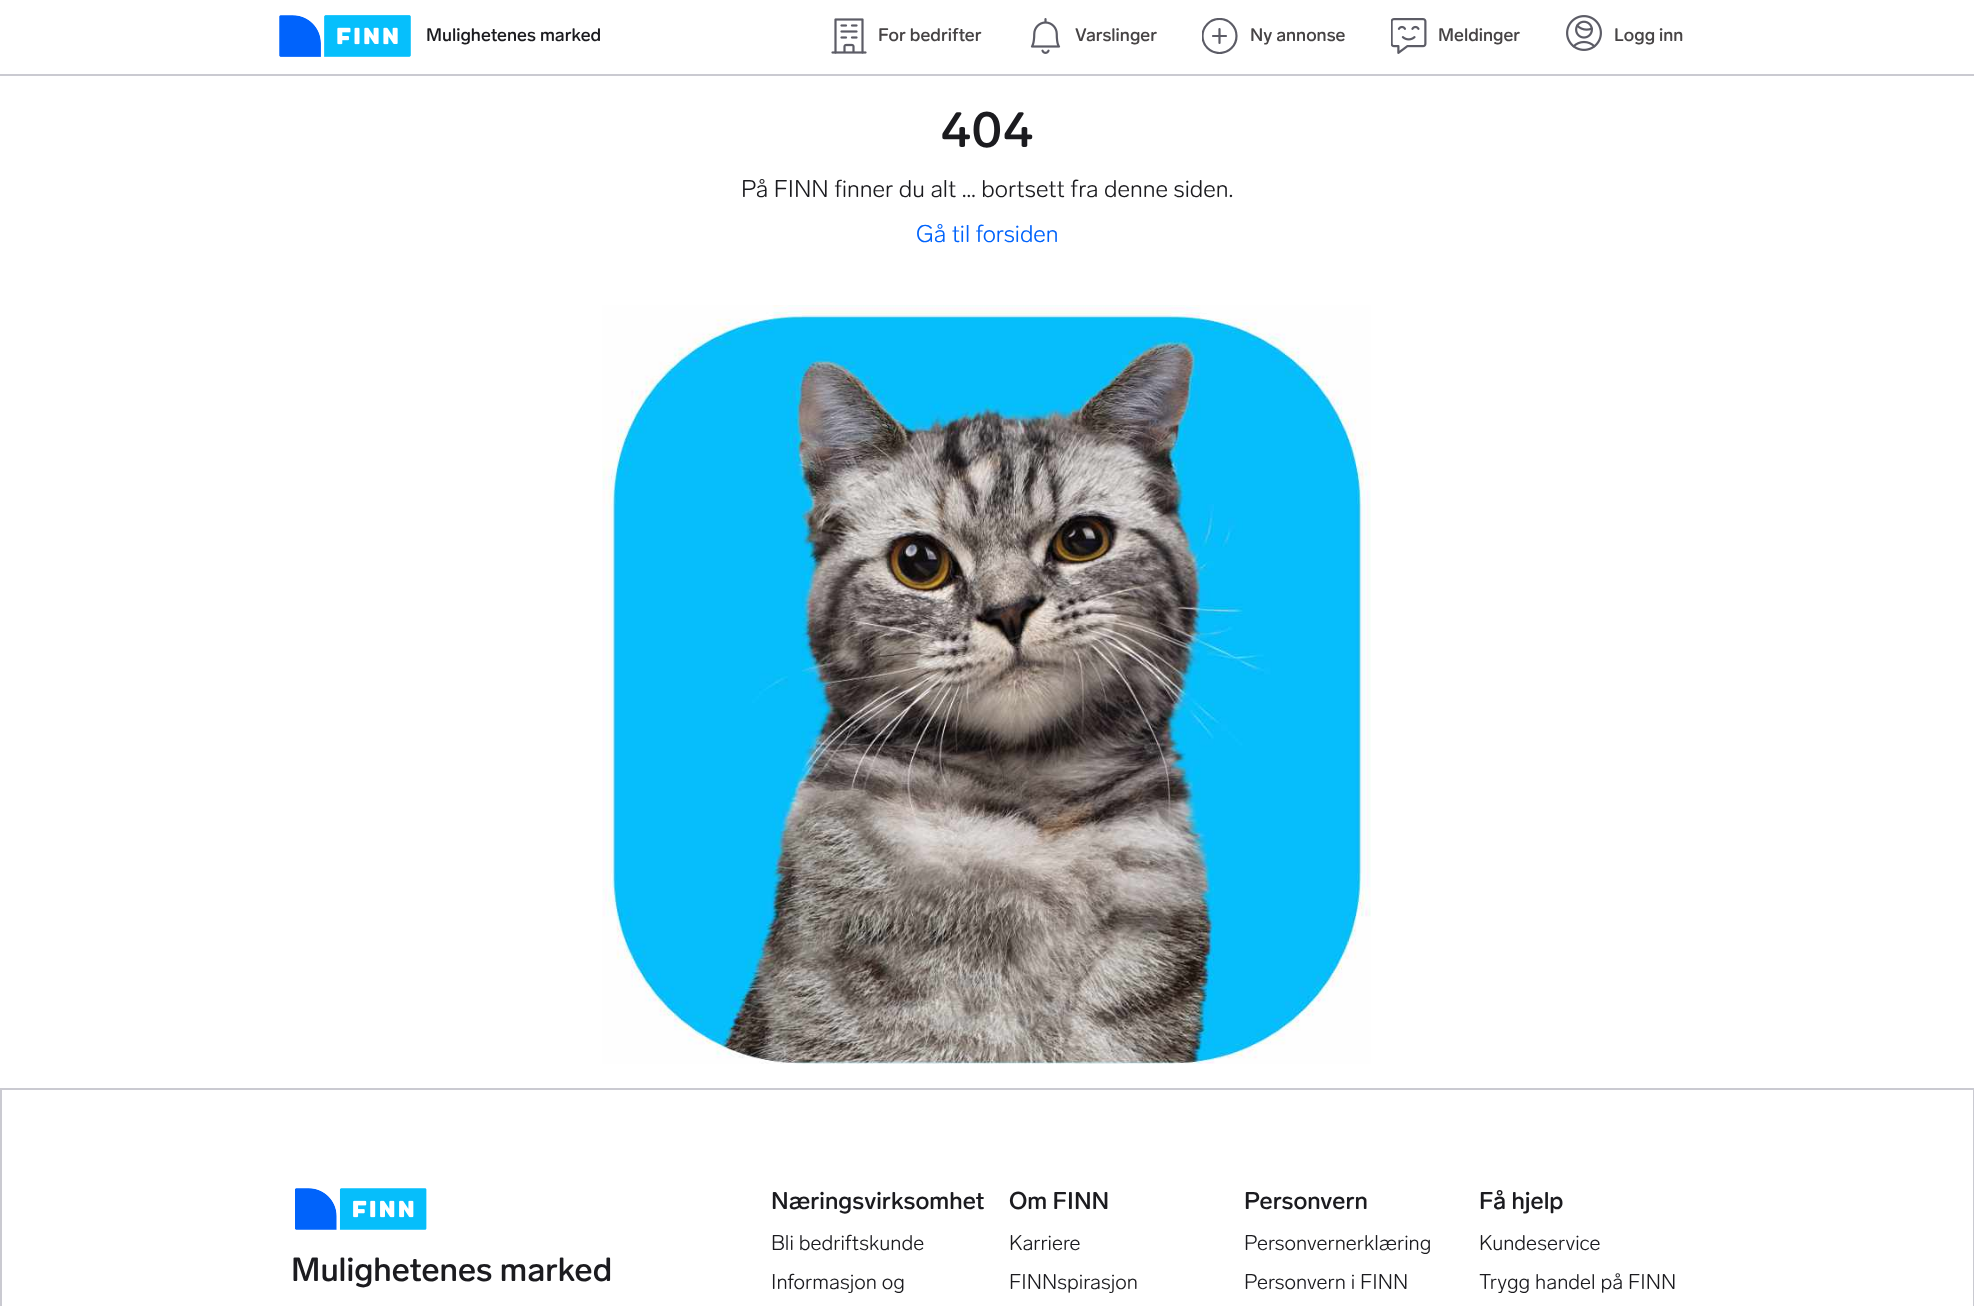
<?xml version="1.0" encoding="UTF-8"?>
<svg xmlns="http://www.w3.org/2000/svg" xmlns:xlink="http://www.w3.org/1999/xlink" width="1974" height="1306">
  <defs>
    <clipPath id="clip1"><rect x="1202" y="18" width="36" height="36" /></clipPath>
  </defs>
  <rect width="100%" height="100%" fill="#ffffff" />
  <rect y="74" width="1974" height="2" fill="#cacad1" />
  <image x="279" y="15" width="132" height="42" xlink:href="image1.png" />
  <image x="831" y="18" width="36" height="36" xlink:href="image2.png" />
  <image x="1030" y="18" width="31" height="36" xlink:href="image3.png" />
  <g clip-path="url(#clip1)">
    <path d="M 1219.5 29 v 14 m -6.5 -7 h 13 m -6.5 17 c 9.5 0 17 -7.5 17 -17 c 0 -9.5 -7.5 -17 -17 -17 c -9.5 0 -17 7.5 -17 17 c 0 9.5 7.5 17 17 17" fill="none" stroke="#5c5c66" stroke-width="2.2" stroke-linecap="round" stroke-linejoin="round" />
  </g>
  <image x="1391" y="18" width="36" height="36" xlink:href="image4.png" />
  <image x="1566" y="15" width="36" height="36" xlink:href="image5.png" />
  <image x="602" y="305" width="769" height="759" xlink:href="image6.png" />
  <rect y="1088" width="1974" height="2" fill="#cacad1" />
  <rect x="1973" y="1088" width="1" height="218" fill="#cacad1" />
  <rect y="1088" width="2" height="218" fill="#cacad1" />
  <image x="295" y="1188" width="132" height="42" xlink:href="image7.png" />
  <text x="426" y="41" style="font-family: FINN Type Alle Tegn; font-size: 18px; font-weight: 500; fill: #1b1b1f">Mulighetenes marked</text>
  <text x="878" y="41" style="font-family: FINN Type Alle Tegn; font-size: 18px; font-weight: 500; fill: #474445">For bedrifter</text>
  <text x="1075" y="41" style="font-family: FINN Type Alle Tegn; font-size: 18px; font-weight: 500; fill: #474445">Varslinger</text>
  <text x="1250" y="41" style="font-family: FINN Type Alle Tegn; font-size: 18px; font-weight: 500; fill: #474445">Ny annonse</text>
  <text x="1438" y="41" style="font-family: FINN Type Alle Tegn; font-size: 18px; font-weight: 500; fill: #474445">Meldinger</text>
  <text x="1614" y="41" style="font-family: FINN Type Alle Tegn; font-size: 18px; font-weight: 500; fill: #474445">Logg inn</text>
  <text x="941" y="147" style="font-family: FINN Type Alle Tegn; font-size: 51px; font-weight: 500; fill: #1b1b1f">404</text>
  <text x="741" y="197" style="font-family: FINN Type Alle Tegn; font-size: 24px; font-weight: 300; fill: #1b1b1f">På FINN finner du alt … bortsett fra denne siden.</text>
  <text x="916" y="242" style="font-family: FINN Type Alle Tegn; font-size: 24px; font-weight: 300; fill: #0063fb">Gå til forsiden</text>
  <text x="291" y="1281" style="font-family: FINN Type Alle Tegn; font-size: 33px; font-weight: 500; fill: #1b1b1f">Mulighetenes marked</text>
  <text x="771" y="1209" style="font-family: FINN Type Alle Tegn; font-size: 24px; font-weight: 500; fill: #1b1b1f">Næringsvirksomhet</text>
  <text x="771" y="1250" style="font-family: FINN Type Alle Tegn; font-size: 21px; font-weight: 300; fill: #1b1b1f">Bli bedriftskunde</text>
  <text x="771" y="1289" style="font-family: FINN Type Alle Tegn; font-size: 21px; font-weight: 300; fill: #1b1b1f">Informasjon og</text>
  <text x="1009" y="1209" style="font-family: FINN Type Alle Tegn; font-size: 24px; font-weight: 500; fill: #1b1b1f">Om FINN</text>
  <text x="1009" y="1250" style="font-family: FINN Type Alle Tegn; font-size: 21px; font-weight: 300; fill: #1b1b1f">Karriere</text>
  <text x="1009" y="1289" style="font-family: FINN Type Alle Tegn; font-size: 21px; font-weight: 300; fill: #1b1b1f">FINNspirasjon</text>
  <text x="1244" y="1209" style="font-family: FINN Type Alle Tegn; font-size: 24px; font-weight: 500; fill: #1b1b1f">Personvern</text>
  <text x="1244" y="1250" style="font-family: FINN Type Alle Tegn; font-size: 21px; font-weight: 300; fill: #1b1b1f">Personvernerklæring</text>
  <text x="1244" y="1289" style="font-family: FINN Type Alle Tegn; font-size: 21px; font-weight: 300; fill: #1b1b1f">Personvern i FINN</text>
  <text x="1479" y="1209" style="font-family: FINN Type Alle Tegn; font-size: 24px; font-weight: 500; fill: #1b1b1f">Få hjelp</text>
  <text x="1479" y="1250" style="font-family: FINN Type Alle Tegn; font-size: 21px; font-weight: 300; fill: #1b1b1f">Kundeservice</text>
  <text x="1479" y="1289" style="font-family: FINN Type Alle Tegn; font-size: 21px; font-weight: 300; fill: #1b1b1f">Trygg handel på FINN</text>
</svg>
